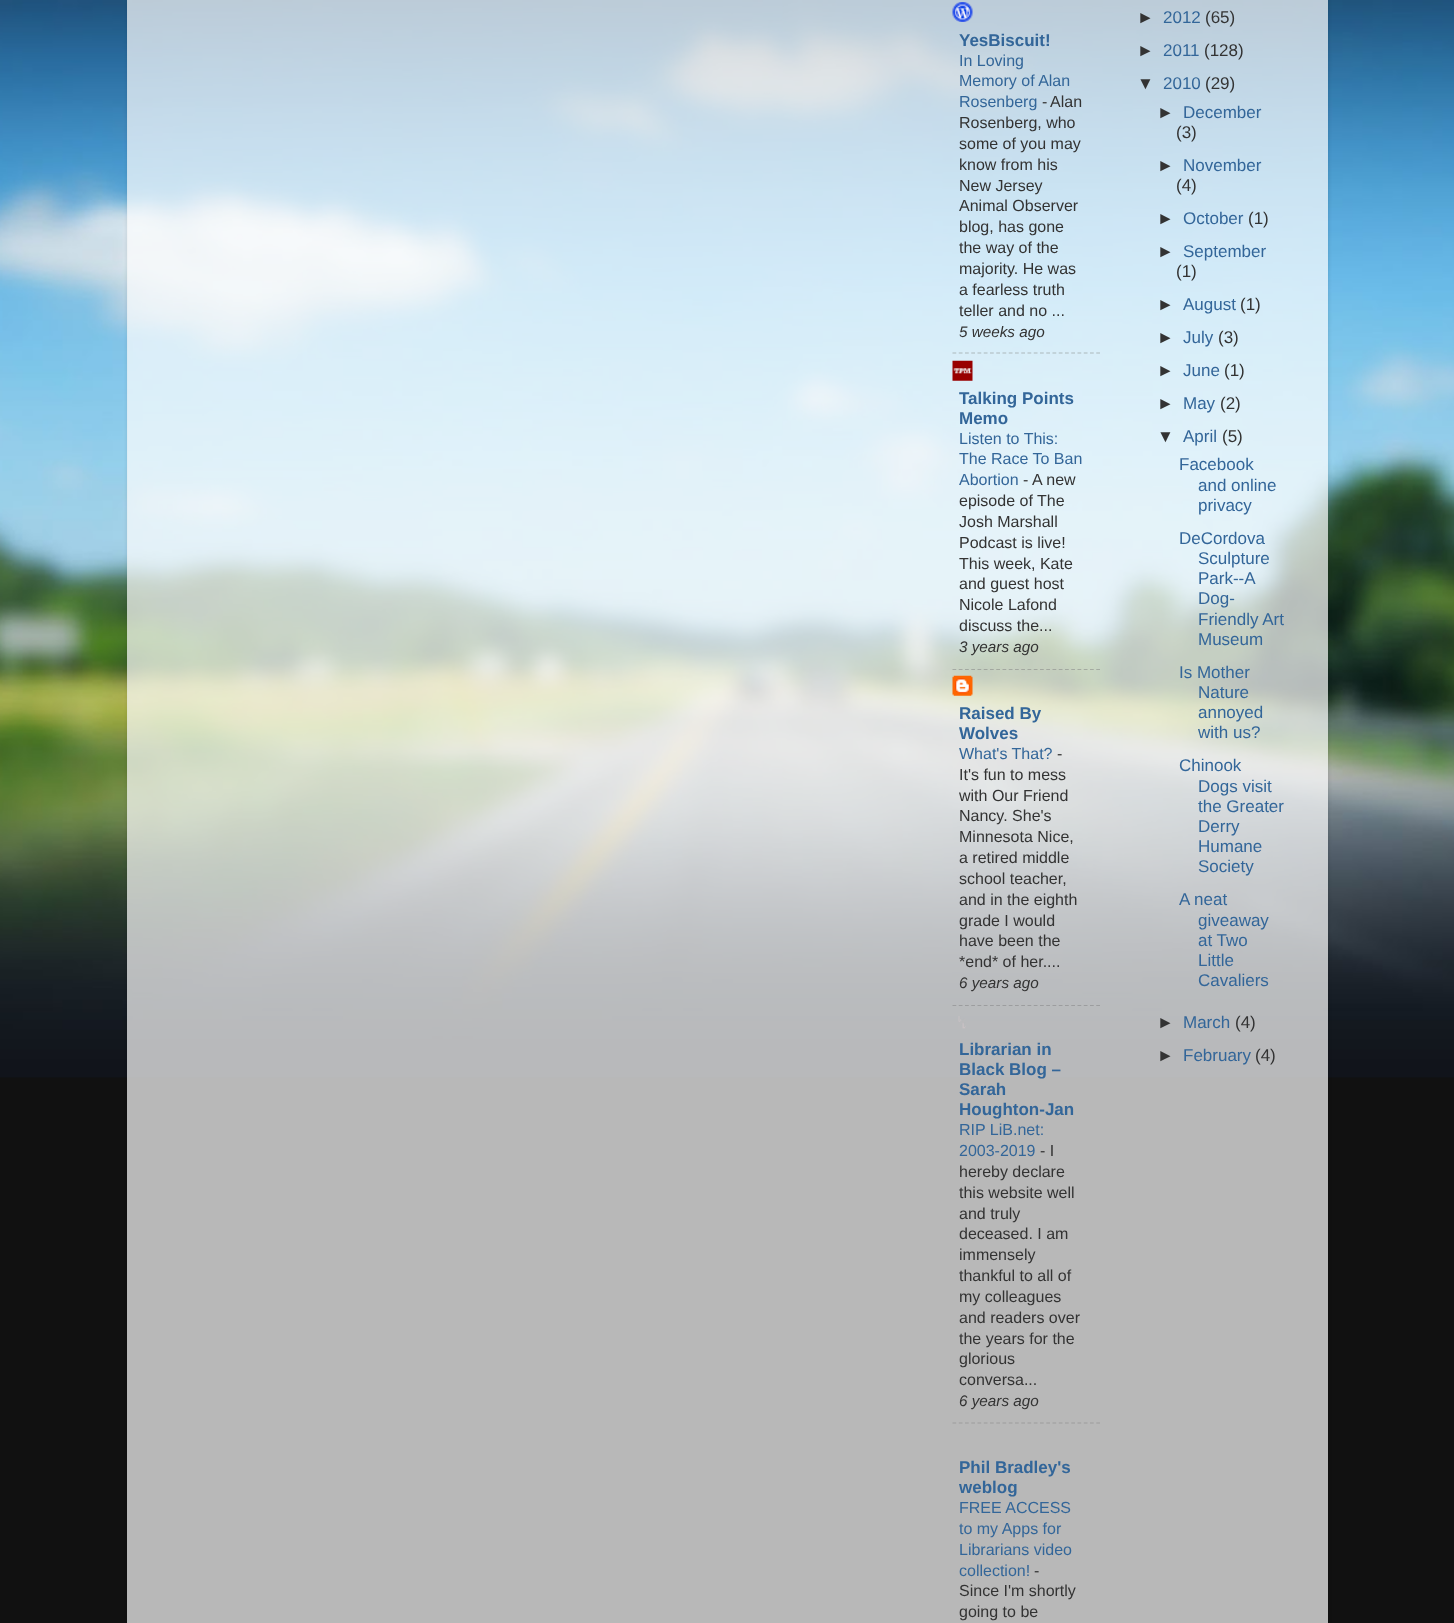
<?xml version="1.0" encoding="UTF-8"?>
<svg xmlns="http://www.w3.org/2000/svg" xmlns:xlink="http://www.w3.org/1999/xlink" width="1454" height="1623">
  <defs>
    <clipPath id="clip1"><path d="M 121 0 h 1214 v 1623 h -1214 z m 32 -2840 h 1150 c 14 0 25 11 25 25 v 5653 h -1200 v -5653 c 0 -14 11 -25 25 -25 z" clip-rule="evenodd" /></clipPath>
  </defs>
  <rect width="100%" height="100%" fill="#111111" />
  <image x="0" y="0" width="1454" height="1078" xlink:href="image1.png" />
  <g clip-path="url(#clip1)">
    <rect x="128" y="-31" width="1200" height="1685" rx="25" fill="#000000" fill-opacity="0.15" filter="blur(2px)" />
  </g>
  <rect x="127" width="1201" height="1623" fill="#ffffff" fill-opacity="0.7" />
  <image x="952" y="2" width="21" height="20" xlink:href="image2.png" />
  <path d="M 952.5 353 h 147.5" fill="none" stroke="#acb7bc" stroke-width="1.2" stroke-dasharray="3.75 2.5" />
  <image x="952" y="360" width="21" height="21" xlink:href="image3.png" />
  <path d="M 952.5 669.5 h 147.5" fill="none" stroke="#808080" stroke-opacity="0.5" stroke-width="1.2" stroke-dasharray="3.75 2.5" />
  <image x="952" y="675" width="21" height="21" xlink:href="image4.png" />
  <path d="M 952.5 1005.5 h 147.5" fill="none" stroke="#9c9d9f" stroke-width="1.2" stroke-dasharray="3.75 2.5" />
  <image x="958" y="1016" width="8" height="13" xlink:href="image5.png" />
  <path d="M 952.5 1423 h 147.5" fill="none" stroke="#9c9c9c" stroke-width="1.2" stroke-dasharray="3.75 2.5" />
  <text x="959" y="46" style="font-family: Liberation Sans; font-size: 17px; font-weight: bold; fill: #336699">YesBiscuit!</text>
  <text x="959" y="66" style="font-family: Liberation Sans; font-size: 16px; fill: #336699">In Loving</text>
  <text x="959" y="86" style="font-family: Liberation Sans; font-size: 16px; fill: #336699">Memory of Alan</text>
  <text x="959" y="107" style="font-family: Liberation Sans; font-size: 16px; fill: #336699">Rosenberg</text>
  <text x="1042" y="107" style="font-family: Liberation Sans; font-size: 16px; fill: #333333">-</text>
  <text x="1050" y="107" style="font-family: Liberation Sans; font-size: 16px; fill: #333333">Alan</text>
  <text x="959" y="128" style="font-family: Liberation Sans; font-size: 16px; fill: #333333">Rosenberg, who</text>
  <text x="959" y="149" style="font-family: Liberation Sans; font-size: 16px; fill: #333333">some of you may</text>
  <text x="959" y="170" style="font-family: Liberation Sans; font-size: 16px; fill: #333333">know from his</text>
  <text x="959" y="191" style="font-family: Liberation Sans; font-size: 16px; fill: #333333">New Jersey</text>
  <text x="959" y="211" style="font-family: Liberation Sans; font-size: 16px; fill: #333333">Animal Observer</text>
  <text x="959" y="232" style="font-family: Liberation Sans; font-size: 16px; fill: #333333">blog, has gone</text>
  <text x="959" y="253" style="font-family: Liberation Sans; font-size: 16px; fill: #333333">the way of the</text>
  <text x="959" y="274" style="font-family: Liberation Sans; font-size: 16px; fill: #333333">majority. He was</text>
  <text x="959" y="295" style="font-family: Liberation Sans; font-size: 16px; fill: #333333">a fearless truth</text>
  <text x="959" y="316" style="font-family: Liberation Sans; font-size: 16px; fill: #333333">teller and no ...</text>
  <text x="959" y="337" style="font-family: Liberation Sans; font-size: 15.25px; font-style: italic; fill: #333333">5 weeks ago</text>
  <text x="959" y="404" style="font-family: Liberation Sans; font-size: 17px; font-weight: bold; fill: #336699">Talking Points</text>
  <text x="959" y="424" style="font-family: Liberation Sans; font-size: 17px; font-weight: bold; fill: #336699">Memo</text>
  <text x="959" y="444" style="font-family: Liberation Sans; font-size: 16px; fill: #336699">Listen to This:</text>
  <text x="959" y="464" style="font-family: Liberation Sans; font-size: 16px; fill: #336699">The Race To Ban</text>
  <text x="959" y="485" style="font-family: Liberation Sans; font-size: 16px; fill: #336699">Abortion</text>
  <text x="1023" y="485" style="font-family: Liberation Sans; font-size: 16px; fill: #333333">-</text>
  <text x="1032" y="485" style="font-family: Liberation Sans; font-size: 16px; fill: #333333">A new</text>
  <text x="959" y="506" style="font-family: Liberation Sans; font-size: 16px; fill: #333333">episode of The</text>
  <text x="959" y="527" style="font-family: Liberation Sans; font-size: 16px; fill: #333333">Josh Marshall</text>
  <text x="959" y="548" style="font-family: Liberation Sans; font-size: 16px; fill: #333333">Podcast is live!</text>
  <text x="959" y="569" style="font-family: Liberation Sans; font-size: 16px; fill: #333333">This week, Kate</text>
  <text x="959" y="589" style="font-family: Liberation Sans; font-size: 16px; fill: #333333">and guest host</text>
  <text x="959" y="610" style="font-family: Liberation Sans; font-size: 16px; fill: #333333">Nicole Lafond</text>
  <text x="959" y="631" style="font-family: Liberation Sans; font-size: 16px; fill: #333333">discuss the...</text>
  <text x="959" y="652" style="font-family: Liberation Sans; font-size: 15.25px; font-style: italic; fill: #333333">3 years ago</text>
  <text x="959" y="719" style="font-family: Liberation Sans; font-size: 17px; font-weight: bold; fill: #336699">Raised By</text>
  <text x="959" y="739" style="font-family: Liberation Sans; font-size: 17px; font-weight: bold; fill: #336699">Wolves</text>
  <text x="959" y="759" style="font-family: Liberation Sans; font-size: 16px; fill: #336699">What's That?</text>
  <text x="1057" y="759" style="font-family: Liberation Sans; font-size: 16px; fill: #333333">-</text>
  <text x="959" y="780" style="font-family: Liberation Sans; font-size: 16px; fill: #333333">It's fun to mess</text>
  <text x="959" y="801" style="font-family: Liberation Sans; font-size: 16px; fill: #333333">with Our Friend</text>
  <text x="959" y="821" style="font-family: Liberation Sans; font-size: 16px; fill: #333333">Nancy. She's</text>
  <text x="959" y="842" style="font-family: Liberation Sans; font-size: 16px; fill: #333333">Minnesota Nice,</text>
  <text x="959" y="863" style="font-family: Liberation Sans; font-size: 16px; fill: #333333">a retired middle</text>
  <text x="959" y="884" style="font-family: Liberation Sans; font-size: 16px; fill: #333333">school teacher,</text>
  <text x="959" y="905" style="font-family: Liberation Sans; font-size: 16px; fill: #333333">and in the eighth</text>
  <text x="959" y="926" style="font-family: Liberation Sans; font-size: 16px; fill: #333333">grade I would</text>
  <text x="959" y="946" style="font-family: Liberation Sans; font-size: 16px; fill: #333333">have been the</text>
  <text x="959" y="967" style="font-family: Liberation Sans; font-size: 16px; fill: #333333">*end* of her....</text>
  <text x="959" y="988" style="font-family: Liberation Sans; font-size: 15.25px; font-style: italic; fill: #333333">6 years ago</text>
  <text x="959" y="1055" style="font-family: Liberation Sans; font-size: 17px; font-weight: bold; fill: #336699">Librarian in</text>
  <text x="959" y="1075" style="font-family: Liberation Sans; font-size: 17px; font-weight: bold; fill: #336699">Black Blog –</text>
  <text x="959" y="1095" style="font-family: Liberation Sans; font-size: 17px; font-weight: bold; fill: #336699">Sarah</text>
  <text x="959" y="1115" style="font-family: Liberation Sans; font-size: 17px; font-weight: bold; fill: #336699">Houghton-Jan</text>
  <text x="959" y="1135" style="font-family: Liberation Sans; font-size: 16px; fill: #336699">RIP LiB.net:</text>
  <text x="959" y="1156" style="font-family: Liberation Sans; font-size: 16px; fill: #336699">2003-2019</text>
  <text x="1040" y="1156" style="font-family: Liberation Sans; font-size: 16px; fill: #333333">- I</text>
  <text x="959" y="1177" style="font-family: Liberation Sans; font-size: 16px; fill: #333333">hereby declare</text>
  <text x="959" y="1198" style="font-family: Liberation Sans; font-size: 16px; fill: #333333">this website well</text>
  <text x="959" y="1219" style="font-family: Liberation Sans; font-size: 16px; fill: #333333">and truly</text>
  <text x="959" y="1239" style="font-family: Liberation Sans; font-size: 16px; fill: #333333">deceased. I am</text>
  <text x="959" y="1260" style="font-family: Liberation Sans; font-size: 16px; fill: #333333">immensely</text>
  <text x="959" y="1281" style="font-family: Liberation Sans; font-size: 16px; fill: #333333">thankful to all of</text>
  <text x="959" y="1302" style="font-family: Liberation Sans; font-size: 16px; fill: #333333">my colleagues</text>
  <text x="959" y="1323" style="font-family: Liberation Sans; font-size: 16px; fill: #333333">and readers over</text>
  <text x="959" y="1344" style="font-family: Liberation Sans; font-size: 16px; fill: #333333">the years for the</text>
  <text x="959" y="1364" style="font-family: Liberation Sans; font-size: 16px; fill: #333333">glorious</text>
  <text x="959" y="1385" style="font-family: Liberation Sans; font-size: 16px; fill: #333333">conversa...</text>
  <text x="959" y="1406" style="font-family: Liberation Sans; font-size: 15.25px; font-style: italic; fill: #333333">6 years ago</text>
  <text x="959" y="1473" style="font-family: Liberation Sans; font-size: 17px; font-weight: bold; fill: #336699">Phil Bradley's</text>
  <text x="959" y="1493" style="font-family: Liberation Sans; font-size: 17px; font-weight: bold; fill: #336699">weblog</text>
  <text x="959" y="1513" style="font-family: Liberation Sans; font-size: 16px; fill: #336699">FREE ACCESS</text>
  <text x="959" y="1534" style="font-family: Liberation Sans; font-size: 16px; fill: #336699">to my Apps for</text>
  <text x="959" y="1555" style="font-family: Liberation Sans; font-size: 16px; fill: #336699">Librarians video</text>
  <text x="959" y="1576" style="font-family: Liberation Sans; font-size: 16px; fill: #336699">collection!</text>
  <text x="1034" y="1576" style="font-family: Liberation Sans; font-size: 16px; fill: #333333">-</text>
  <text x="959" y="1596" style="font-family: Liberation Sans; font-size: 16px; fill: #333333">Since I'm shortly</text>
  <text x="959" y="1617" style="font-family: Liberation Sans; font-size: 16px; fill: #333333">going to be</text>
  <text x="1137" y="23" style="font-family: Liberation Sans; font-size: 17px; fill: #333333">►</text>
  <text x="1163" y="23" style="font-family: Liberation Sans; font-size: 17px; fill: #336699">2012</text>
  <text x="1205" y="23" style="font-family: Liberation Sans; font-size: 17px; fill: #333333">(65)</text>
  <text x="1137" y="56" style="font-family: Liberation Sans; font-size: 17px; fill: #333333">►</text>
  <text x="1163" y="56" style="font-family: Liberation Sans; font-size: 17px; fill: #336699">2011</text>
  <text x="1204" y="56" style="font-family: Liberation Sans; font-size: 17px; fill: #333333">(128)</text>
  <text x="1137" y="89" style="font-family: Liberation Sans; font-size: 17px; fill: #333333">▼</text>
  <text x="1163" y="89" style="font-family: Liberation Sans; font-size: 17px; fill: #336699">2010</text>
  <text x="1205" y="89" style="font-family: Liberation Sans; font-size: 17px; fill: #333333">(29)</text>
  <text x="1157" y="118" style="font-family: Liberation Sans; font-size: 17px; fill: #333333">►</text>
  <text x="1183" y="118" style="font-family: Liberation Sans; font-size: 17px; fill: #336699">December</text>
  <text x="1176" y="138" style="font-family: Liberation Sans; font-size: 17px; fill: #333333">(3)</text>
  <text x="1157" y="171" style="font-family: Liberation Sans; font-size: 17px; fill: #333333">►</text>
  <text x="1183" y="171" style="font-family: Liberation Sans; font-size: 17px; fill: #336699">November</text>
  <text x="1176" y="191" style="font-family: Liberation Sans; font-size: 17px; fill: #333333">(4)</text>
  <text x="1157" y="224" style="font-family: Liberation Sans; font-size: 17px; fill: #333333">►</text>
  <text x="1183" y="224" style="font-family: Liberation Sans; font-size: 17px; fill: #336699">October</text>
  <text x="1248" y="224" style="font-family: Liberation Sans; font-size: 17px; fill: #333333">(1)</text>
  <text x="1157" y="257" style="font-family: Liberation Sans; font-size: 17px; fill: #333333">►</text>
  <text x="1183" y="257" style="font-family: Liberation Sans; font-size: 17px; fill: #336699">September</text>
  <text x="1176" y="277" style="font-family: Liberation Sans; font-size: 17px; fill: #333333">(1)</text>
  <text x="1157" y="310" style="font-family: Liberation Sans; font-size: 17px; fill: #333333">►</text>
  <text x="1183" y="310" style="font-family: Liberation Sans; font-size: 17px; fill: #336699">August</text>
  <text x="1240" y="310" style="font-family: Liberation Sans; font-size: 17px; fill: #333333">(1)</text>
  <text x="1157" y="343" style="font-family: Liberation Sans; font-size: 17px; fill: #333333">►</text>
  <text x="1183" y="343" style="font-family: Liberation Sans; font-size: 17px; fill: #336699">July</text>
  <text x="1218" y="343" style="font-family: Liberation Sans; font-size: 17px; fill: #333333">(3)</text>
  <text x="1157" y="376" style="font-family: Liberation Sans; font-size: 17px; fill: #333333">►</text>
  <text x="1183" y="376" style="font-family: Liberation Sans; font-size: 17px; fill: #336699">June</text>
  <text x="1224" y="376" style="font-family: Liberation Sans; font-size: 17px; fill: #333333">(1)</text>
  <text x="1157" y="409" style="font-family: Liberation Sans; font-size: 17px; fill: #333333">►</text>
  <text x="1183" y="409" style="font-family: Liberation Sans; font-size: 17px; fill: #336699">May</text>
  <text x="1220" y="409" style="font-family: Liberation Sans; font-size: 17px; fill: #333333">(2)</text>
  <text x="1157" y="442" style="font-family: Liberation Sans; font-size: 17px; fill: #333333">▼</text>
  <text x="1183" y="442" style="font-family: Liberation Sans; font-size: 17px; fill: #336699">April</text>
  <text x="1222" y="442" style="font-family: Liberation Sans; font-size: 17px; fill: #333333">(5)</text>
  <text x="1179" y="470" style="font-family: Liberation Sans; font-size: 17px; fill: #336699">Facebook</text>
  <text x="1198" y="491" style="font-family: Liberation Sans; font-size: 17px; fill: #336699">and online</text>
  <text x="1198" y="511" style="font-family: Liberation Sans; font-size: 17px; fill: #336699">privacy</text>
  <text x="1179" y="544" style="font-family: Liberation Sans; font-size: 17px; fill: #336699">DeCordova</text>
  <text x="1198" y="564" style="font-family: Liberation Sans; font-size: 17px; fill: #336699">Sculpture</text>
  <text x="1198" y="584" style="font-family: Liberation Sans; font-size: 17px; fill: #336699">Park--A</text>
  <text x="1198" y="604" style="font-family: Liberation Sans; font-size: 17px; fill: #336699">Dog-</text>
  <text x="1198" y="625" style="font-family: Liberation Sans; font-size: 17px; fill: #336699">Friendly Art</text>
  <text x="1198" y="645" style="font-family: Liberation Sans; font-size: 17px; fill: #336699">Museum</text>
  <text x="1179" y="678" style="font-family: Liberation Sans; font-size: 17px; fill: #336699">Is Mother</text>
  <text x="1198" y="698" style="font-family: Liberation Sans; font-size: 17px; fill: #336699">Nature</text>
  <text x="1198" y="718" style="font-family: Liberation Sans; font-size: 17px; fill: #336699">annoyed</text>
  <text x="1198" y="738" style="font-family: Liberation Sans; font-size: 17px; fill: #336699">with us?</text>
  <text x="1179" y="771" style="font-family: Liberation Sans; font-size: 17px; fill: #336699">Chinook</text>
  <text x="1198" y="792" style="font-family: Liberation Sans; font-size: 17px; fill: #336699">Dogs visit</text>
  <text x="1198" y="812" style="font-family: Liberation Sans; font-size: 17px; fill: #336699">the Greater</text>
  <text x="1198" y="832" style="font-family: Liberation Sans; font-size: 17px; fill: #336699">Derry</text>
  <text x="1198" y="852" style="font-family: Liberation Sans; font-size: 17px; fill: #336699">Humane</text>
  <text x="1198" y="872" style="font-family: Liberation Sans; font-size: 17px; fill: #336699">Society</text>
  <text x="1179" y="905" style="font-family: Liberation Sans; font-size: 17px; fill: #336699">A neat</text>
  <text x="1198" y="926" style="font-family: Liberation Sans; font-size: 17px; fill: #336699">giveaway</text>
  <text x="1198" y="946" style="font-family: Liberation Sans; font-size: 17px; fill: #336699">at Two</text>
  <text x="1198" y="966" style="font-family: Liberation Sans; font-size: 17px; fill: #336699">Little</text>
  <text x="1198" y="986" style="font-family: Liberation Sans; font-size: 17px; fill: #336699">Cavaliers</text>
  <text x="1157" y="1028" style="font-family: Liberation Sans; font-size: 17px; fill: #333333">►</text>
  <text x="1183" y="1028" style="font-family: Liberation Sans; font-size: 17px; fill: #336699">March</text>
  <text x="1235" y="1028" style="font-family: Liberation Sans; font-size: 17px; fill: #333333">(4)</text>
  <text x="1157" y="1061" style="font-family: Liberation Sans; font-size: 17px; fill: #333333">►</text>
  <text x="1183" y="1061" style="font-family: Liberation Sans; font-size: 17px; fill: #336699">February</text>
  <text x="1255" y="1061" style="font-family: Liberation Sans; font-size: 17px; fill: #333333">(4)</text>
</svg>
